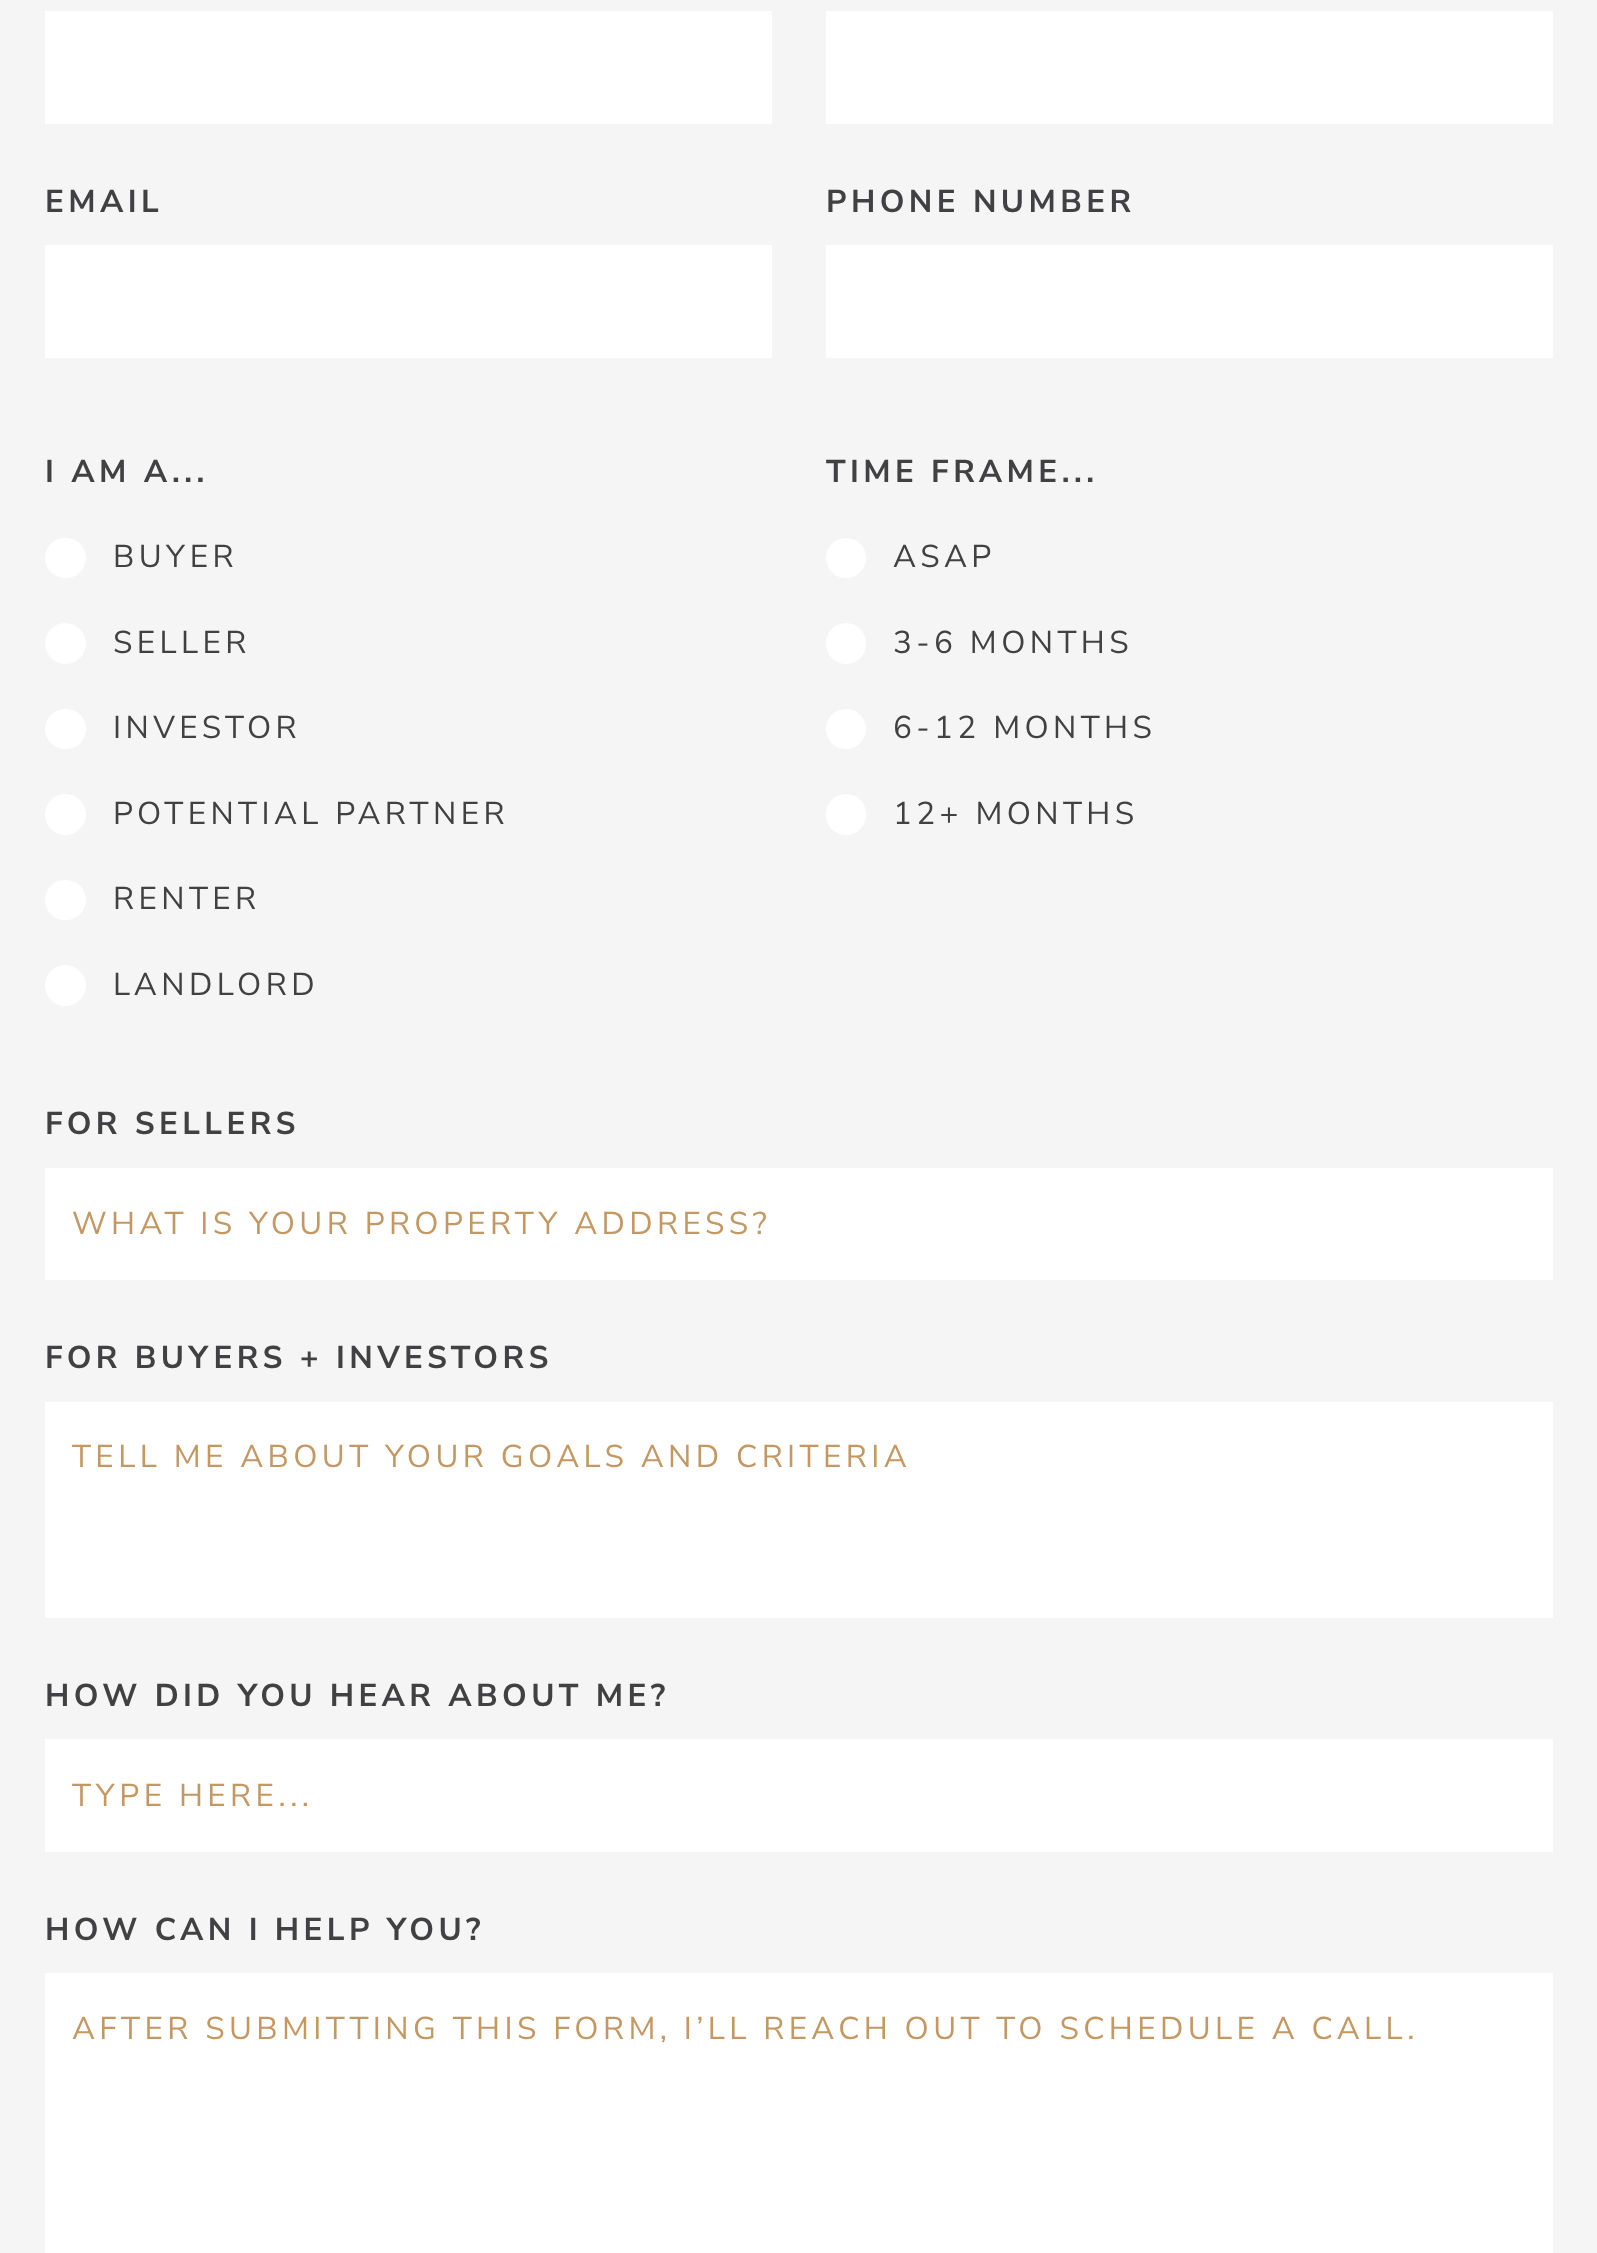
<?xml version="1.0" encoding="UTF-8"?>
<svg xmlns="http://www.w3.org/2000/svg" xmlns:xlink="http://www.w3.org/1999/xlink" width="1597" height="2253">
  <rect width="100%" height="100%" fill="#f5f5f5" />
  <rect x="45" y="11" width="727" height="113" fill="#ffffff" />
  <rect x="826" y="11" width="727" height="113" fill="#ffffff" />
  <rect x="45" y="245" width="727" height="113" fill="#ffffff" />
  <rect x="826" y="245" width="727" height="113" fill="#ffffff" />
  <rect x="45" y="538" width="41" height="40" rx="20" fill="#ffffff" />
  <circle cx="65.5" cy="643.5" r="20.5" fill="#ffffff" />
  <rect x="45" y="709" width="41" height="40" rx="20" fill="#ffffff" />
  <circle cx="65.5" cy="814.5" r="20.5" fill="#ffffff" />
  <rect x="45" y="880" width="41" height="40" rx="20" fill="#ffffff" />
  <circle cx="65.5" cy="985.5" r="20.5" fill="#ffffff" />
  <circle cx="846" cy="558" r="20" fill="#ffffff" />
  <rect x="826" y="623" width="40" height="41" rx="20" fill="#ffffff" />
  <circle cx="846" cy="729" r="20" fill="#ffffff" />
  <rect x="826" y="794" width="40" height="41" rx="20" fill="#ffffff" />
  <rect x="45" y="1168" width="1508" height="112" fill="#ffffff" />
  <rect x="45" y="1402" width="1508" height="216" fill="#ffffff" />
  <rect x="45" y="1739" width="1508" height="113" fill="#ffffff" />
  <rect x="45" y="1973" width="1508" height="280" fill="#ffffff" />
  <text x="45" y="212" style="font-family: Nunito Sans; font-size: 31.5px; font-weight: bold; letter-spacing: 4.4px; fill: #414042">EMAIL</text>
  <text x="826" y="212" style="font-family: Nunito Sans; font-size: 31.5px; font-weight: bold; letter-spacing: 4.4px; fill: #414042">PHONE NUMBER</text>
  <text x="45" y="482" style="font-family: Nunito Sans; font-size: 31.5px; font-weight: bold; letter-spacing: 4.4px; fill: #414042">I AM A...</text>
  <text x="113" y="567" style="font-family: Nunito Sans; font-size: 31.5px; letter-spacing: 4.4px; fill: #414042">BUYER</text>
  <text x="113" y="653" style="font-family: Nunito Sans; font-size: 31.5px; letter-spacing: 4.4px; fill: #414042">SELLER</text>
  <text x="113" y="738" style="font-family: Nunito Sans; font-size: 31.5px; letter-spacing: 4.4px; fill: #414042">INVESTOR</text>
  <text x="113" y="824" style="font-family: Nunito Sans; font-size: 31.5px; letter-spacing: 4.4px; fill: #414042">POTENTIAL PARTNER</text>
  <text x="113" y="909" style="font-family: Nunito Sans; font-size: 31.5px; letter-spacing: 4.4px; fill: #414042">RENTER</text>
  <text x="113" y="995" style="font-family: Nunito Sans; font-size: 31.5px; letter-spacing: 4.4px; fill: #414042">LANDLORD</text>
  <text x="826" y="482" style="font-family: Nunito Sans; font-size: 31.5px; font-weight: bold; letter-spacing: 4.4px; fill: #414042">TIME FRAME...</text>
  <text x="893" y="567" style="font-family: Nunito Sans; font-size: 31.5px; letter-spacing: 4.4px; fill: #414042">ASAP</text>
  <text x="893" y="653" style="font-family: Nunito Sans; font-size: 31.5px; letter-spacing: 4.4px; fill: #414042">3-6 MONTHS</text>
  <text x="893" y="738" style="font-family: Nunito Sans; font-size: 31.5px; letter-spacing: 4.4px; fill: #414042">6-12 MONTHS</text>
  <text x="893" y="824" style="font-family: Nunito Sans; font-size: 31.5px; letter-spacing: 4.4px; fill: #414042">12+ MONTHS</text>
  <text x="45" y="1134" style="font-family: Nunito Sans; font-size: 31.5px; font-weight: bold; letter-spacing: 4.4px; fill: #414042">FOR SELLERS</text>
  <text x="72" y="1234" style="font-family: Nunito Sans; font-size: 31.5px; letter-spacing: 4.4px; fill: #c59761">WHAT IS YOUR PROPERTY ADDRESS?</text>
  <text x="45" y="1368" style="font-family: Nunito Sans; font-size: 31.5px; font-weight: bold; letter-spacing: 4.4px; fill: #414042">FOR BUYERS + INVESTORS</text>
  <text x="72" y="1467" style="font-family: Nunito Sans; font-size: 31.5px; letter-spacing: 4.4px; fill: #c59761">TELL ME ABOUT YOUR GOALS AND CRITERIA</text>
  <text x="45" y="1706" style="font-family: Nunito Sans; font-size: 31.5px; font-weight: bold; letter-spacing: 4.4px; fill: #414042">HOW DID YOU HEAR ABOUT ME?</text>
  <text x="72" y="1806" style="font-family: Nunito Sans; font-size: 31.5px; letter-spacing: 4.4px; fill: #c59761">TYPE HERE...</text>
  <text x="45" y="1940" style="font-family: Nunito Sans; font-size: 31.5px; font-weight: bold; letter-spacing: 4.4px; fill: #414042">HOW CAN I HELP YOU?</text>
  <text x="72" y="2039" style="font-family: Nunito Sans; font-size: 31.5px; letter-spacing: 4.4px; fill: #c59761">AFTER SUBMITTING THIS FORM, I’LL REACH OUT TO SCHEDULE A CALL.</text>
</svg>
